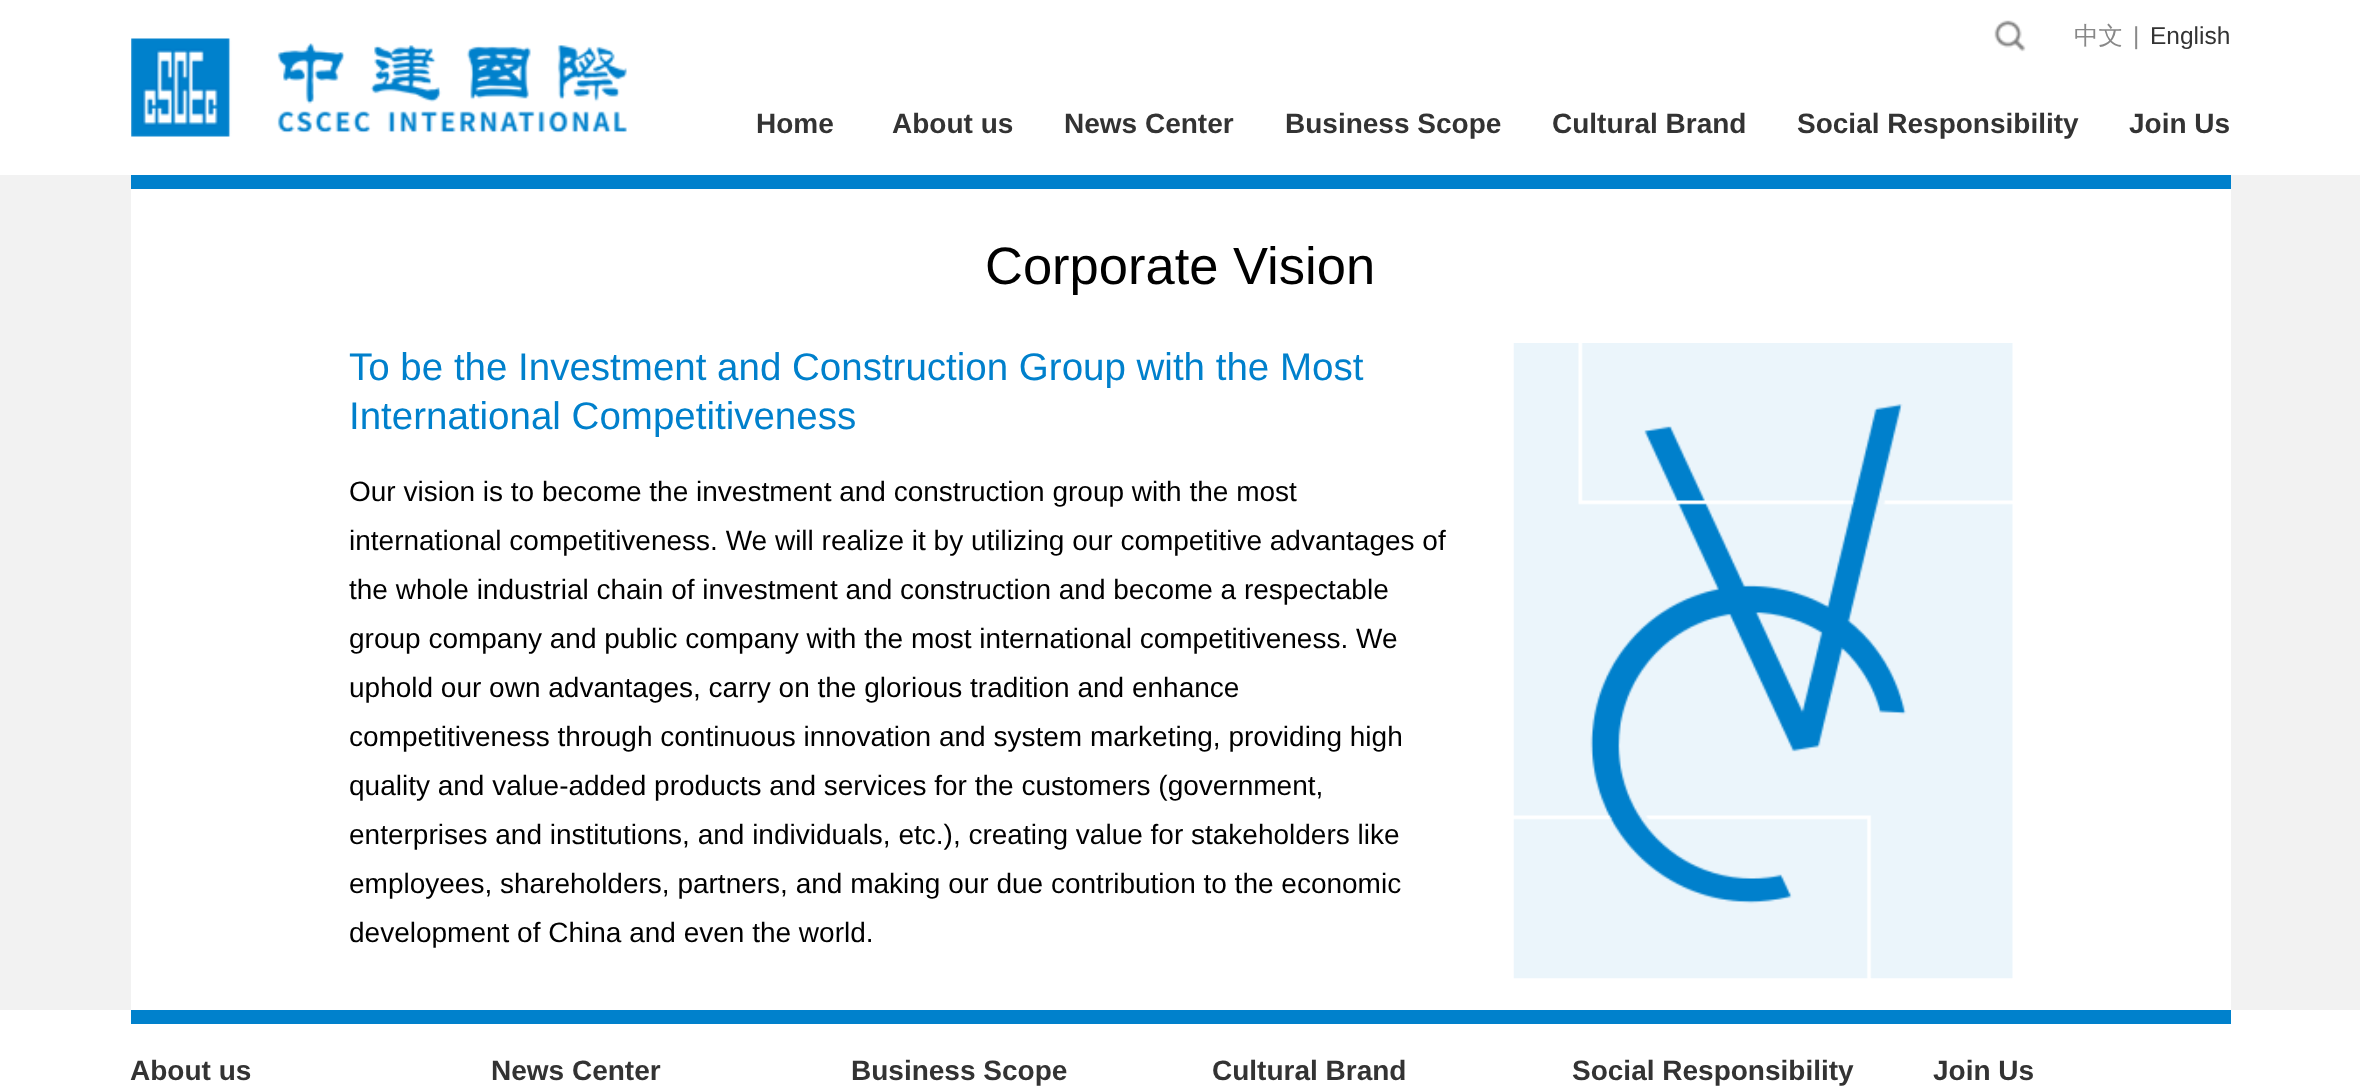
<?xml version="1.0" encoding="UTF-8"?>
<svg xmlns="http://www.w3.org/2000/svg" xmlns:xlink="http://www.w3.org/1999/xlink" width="2360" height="1090">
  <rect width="100%" height="100%" fill="#ffffff" />
  <image x="131" y="38" width="496" height="99" xlink:href="image1.png" />
  <image x="1994" y="20" width="32" height="32" xlink:href="image2.png" />
  <rect y="175" width="2360" height="835" fill="#f2f2f2" />
  <rect x="131" y="189" width="2100" height="821" fill="#ffffff" />
  <rect x="131" y="175" width="2100" height="14" fill="#0080cc" />
  <image x="1513" y="343" width="500" height="636" xlink:href="image3.png" />
  <rect x="131" y="1010" width="2100" height="14" fill="#0081cc" />
  <text x="2074" y="44" style="font-family: WenQuanYi Zen Hei; font-size: 24.5px; font-weight: 500; fill: #888888">中文</text>
  <text x="2133" y="44" style="font-family: Liberation Sans; font-size: 24.5px; fill: #888888">|</text>
  <text x="2150" y="44" style="font-family: Liberation Sans; font-size: 24.5px; fill: #333333">English</text>
  <text x="756" y="133" style="font-family: Liberation Sans; font-size: 28px; font-weight: bold; fill: #333333">Home</text>
  <text x="892" y="133" style="font-family: Liberation Sans; font-size: 28px; font-weight: bold; fill: #333333">About us</text>
  <text x="1064" y="133" style="font-family: Liberation Sans; font-size: 28px; font-weight: bold; fill: #333333">News Center</text>
  <text x="1285" y="133" style="font-family: Liberation Sans; font-size: 28px; font-weight: bold; fill: #333333">Business Scope</text>
  <text x="1552" y="133" style="font-family: Liberation Sans; font-size: 28px; font-weight: bold; fill: #333333">Cultural Brand</text>
  <text x="1797" y="133" style="font-family: Liberation Sans; font-size: 28px; font-weight: bold; fill: #333333">Social Responsibility</text>
  <text x="2129" y="133" style="font-family: Liberation Sans; font-size: 28px; font-weight: bold; fill: #333333">Join Us</text>
  <text x="985" y="284" style="font-family: Liberation Sans; font-size: 52.5px; fill: #000000">Corporate Vision</text>
  <text x="349" y="380" style="font-family: Liberation Sans; font-size: 38.5px; fill: #0080cc">To be the Investment and Construction Group with the Most</text>
  <text x="349" y="429" style="font-family: Liberation Sans; font-size: 38.5px; fill: #0080cc">International Competitiveness</text>
  <text x="349" y="501" style="font-family: Liberation Sans; font-size: 28px; fill: #000000">Our vision is to become the investment and construction group with the most</text>
  <text x="349" y="550" style="font-family: Liberation Sans; font-size: 28px; fill: #000000">international competitiveness. We will realize it by utilizing our competitive advantages of</text>
  <text x="349" y="599" style="font-family: Liberation Sans; font-size: 28px; fill: #000000">the whole industrial chain of investment and construction and become a respectable</text>
  <text x="349" y="648" style="font-family: Liberation Sans; font-size: 28px; fill: #000000">group company and public company with the most international competitiveness. We</text>
  <text x="349" y="697" style="font-family: Liberation Sans; font-size: 28px; fill: #000000">uphold our own advantages, carry on the glorious tradition and enhance</text>
  <text x="349" y="746" style="font-family: Liberation Sans; font-size: 28px; fill: #000000">competitiveness through continuous innovation and system marketing, providing high</text>
  <text x="349" y="795" style="font-family: Liberation Sans; font-size: 28px; fill: #000000">quality and value-added products and services for the customers (government,</text>
  <text x="349" y="844" style="font-family: Liberation Sans; font-size: 28px; fill: #000000">enterprises and institutions, and individuals, etc.), creating value for stakeholders like</text>
  <text x="349" y="893" style="font-family: Liberation Sans; font-size: 28px; fill: #000000">employees, shareholders, partners, and making our due contribution to the economic</text>
  <text x="349" y="942" style="font-family: Liberation Sans; font-size: 28px; fill: #000000">development of China and even the world.</text>
  <text x="130" y="1080" style="font-family: Liberation Sans; font-size: 28px; font-weight: bold; fill: #333333">About us</text>
  <text x="491" y="1080" style="font-family: Liberation Sans; font-size: 28px; font-weight: bold; fill: #333333">News Center</text>
  <text x="851" y="1080" style="font-family: Liberation Sans; font-size: 28px; font-weight: bold; fill: #333333">Business Scope</text>
  <text x="1212" y="1080" style="font-family: Liberation Sans; font-size: 28px; font-weight: bold; fill: #333333">Cultural Brand</text>
  <text x="1572" y="1080" style="font-family: Liberation Sans; font-size: 28px; font-weight: bold; fill: #333333">Social Responsibility</text>
  <text x="1933" y="1080" style="font-family: Liberation Sans; font-size: 28px; font-weight: bold; fill: #333333">Join Us</text>
</svg>
